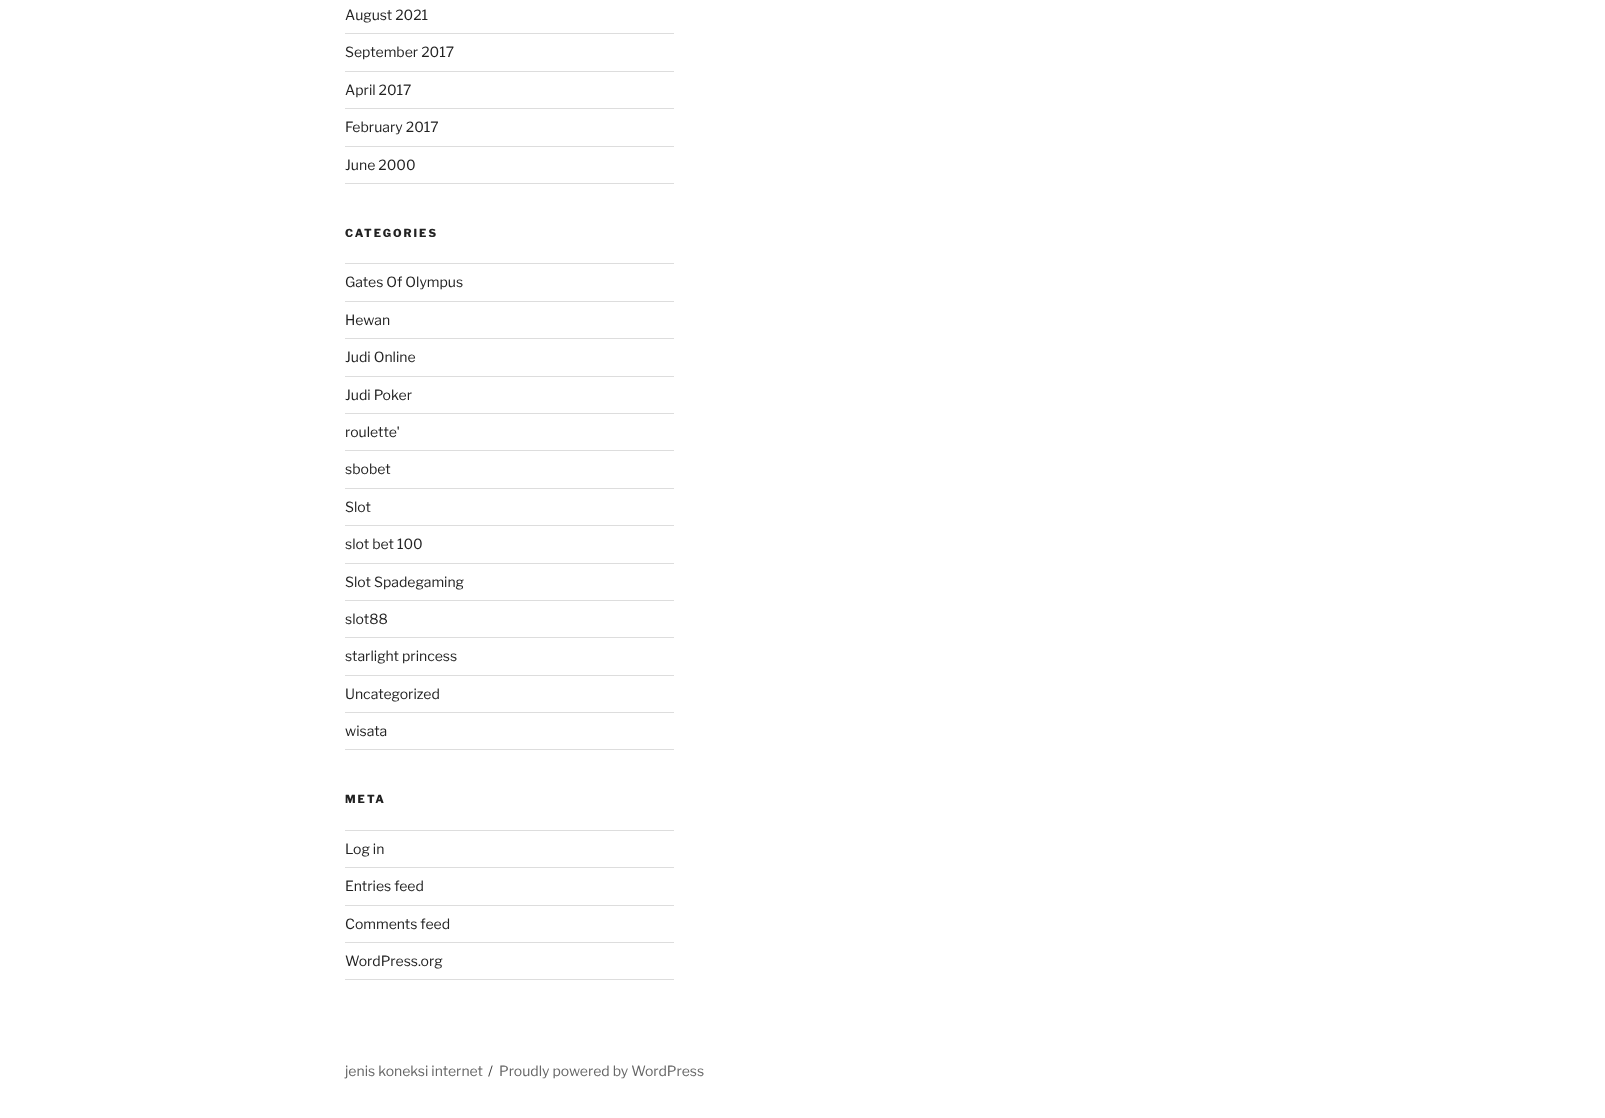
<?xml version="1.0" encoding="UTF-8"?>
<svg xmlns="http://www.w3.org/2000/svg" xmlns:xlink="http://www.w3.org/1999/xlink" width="1605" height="1118">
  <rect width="100%" height="100%" fill="#ffffff" />
  <rect x="345" y="33" width="329" height="1" fill="#dddddd" />
  <rect x="345" y="71" width="329" height="1" fill="#dddddd" />
  <rect x="345" y="108" width="329" height="1" fill="#dddddd" />
  <rect x="345" y="146" width="329" height="1" fill="#dddddd" />
  <rect x="345" y="183" width="329" height="1" fill="#dddddd" />
  <rect x="345" y="263" width="329" height="1" fill="#dddddd" />
  <rect x="345" y="301" width="329" height="1" fill="#dddddd" />
  <rect x="345" y="338" width="329" height="1" fill="#dddddd" />
  <rect x="345" y="376" width="329" height="1" fill="#dddddd" />
  <rect x="345" y="413" width="329" height="1" fill="#dddddd" />
  <rect x="345" y="450" width="329" height="1" fill="#dddddd" />
  <rect x="345" y="488" width="329" height="1" fill="#dddddd" />
  <rect x="345" y="525" width="329" height="1" fill="#dddddd" />
  <rect x="345" y="563" width="329" height="1" fill="#dddddd" />
  <rect x="345" y="600" width="329" height="1" fill="#dddddd" />
  <rect x="345" y="637" width="329" height="1" fill="#dddddd" />
  <rect x="345" y="675" width="329" height="1" fill="#dddddd" />
  <rect x="345" y="712" width="329" height="1" fill="#dddddd" />
  <rect x="345" y="749" width="329" height="1" fill="#dddddd" />
  <rect x="345" y="830" width="329" height="1" fill="#dddddd" />
  <rect x="345" y="867" width="329" height="1" fill="#dddddd" />
  <rect x="345" y="905" width="329" height="1" fill="#dddddd" />
  <rect x="345" y="942" width="329" height="1" fill="#dddddd" />
  <rect x="345" y="979" width="329" height="1" fill="#dddddd" />
  <text x="345" y="20" style="font-family: Libre Franklin; font-size: 14px; font-weight: 100; fill: #222222">August 2021</text>
  <text x="345" y="57" style="font-family: Libre Franklin; font-size: 14px; font-weight: 100; fill: #222222">September 2017</text>
  <text x="345" y="95" style="font-family: Libre Franklin; font-size: 14px; font-weight: 100; fill: #222222">April 2017</text>
  <text x="345" y="132" style="font-family: Libre Franklin; font-size: 14px; font-weight: 100; fill: #222222">February 2017</text>
  <text x="345" y="170" style="font-family: Libre Franklin; font-size: 14px; font-weight: 100; fill: #222222">June 2000</text>
  <text x="345" y="237" style="font-family: 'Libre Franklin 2'; font-size: 11px; font-weight: 100; letter-spacing: 2px; fill: #222222">CATEGORIES</text>
  <text x="345" y="287" style="font-family: Libre Franklin; font-size: 14px; font-weight: 100; fill: #222222">Gates Of Olympus</text>
  <text x="345" y="325" style="font-family: Libre Franklin; font-size: 14px; font-weight: 100; fill: #222222">Hewan</text>
  <text x="345" y="362" style="font-family: Libre Franklin; font-size: 14px; font-weight: 100; fill: #222222">Judi Online</text>
  <text x="345" y="400" style="font-family: Libre Franklin; font-size: 14px; font-weight: 100; fill: #222222">Judi Poker</text>
  <text x="345" y="437" style="font-family: Libre Franklin; font-size: 14px; font-weight: 100; fill: #222222">roulette'</text>
  <text x="345" y="474" style="font-family: Libre Franklin; font-size: 14px; font-weight: 100; fill: #222222">sbobet</text>
  <text x="345" y="512" style="font-family: Libre Franklin; font-size: 14px; font-weight: 100; fill: #222222">Slot</text>
  <text x="345" y="549" style="font-family: Libre Franklin; font-size: 14px; font-weight: 100; fill: #222222">slot bet 100</text>
  <text x="345" y="587" style="font-family: Libre Franklin; font-size: 14px; font-weight: 100; fill: #222222">Slot Spadegaming</text>
  <text x="345" y="624" style="font-family: Libre Franklin; font-size: 14px; font-weight: 100; fill: #222222">slot88</text>
  <text x="345" y="661" style="font-family: Libre Franklin; font-size: 14px; font-weight: 100; fill: #222222">starlight princess</text>
  <text x="345" y="699" style="font-family: Libre Franklin; font-size: 14px; font-weight: 100; fill: #222222">Uncategorized</text>
  <text x="345" y="736" style="font-family: Libre Franklin; font-size: 14px; font-weight: 100; fill: #222222">wisata</text>
  <text x="345" y="803" style="font-family: 'Libre Franklin 2'; font-size: 11px; font-weight: 100; letter-spacing: 2px; fill: #222222">META</text>
  <text x="345" y="854" style="font-family: Libre Franklin; font-size: 14px; font-weight: 100; fill: #222222">Log in</text>
  <text x="345" y="891" style="font-family: Libre Franklin; font-size: 14px; font-weight: 100; fill: #222222">Entries feed</text>
  <text x="345" y="929" style="font-family: Libre Franklin; font-size: 14px; font-weight: 100; fill: #222222">Comments feed</text>
  <text x="345" y="966" style="font-family: Libre Franklin; font-size: 14px; font-weight: 100; fill: #222222">WordPress.org</text>
  <text x="345" y="1076" style="font-family: Libre Franklin; font-size: 14px; font-weight: 100; fill: #666666">jenis koneksi internet</text>
  <text x="488" y="1076" style="font-family: Libre Franklin; font-size: 14px; font-weight: 100; fill: #333333">/</text>
  <text x="499" y="1076" style="font-family: Libre Franklin; font-size: 14px; font-weight: 100; fill: #666666">Proudly powered by WordPress</text>
</svg>
